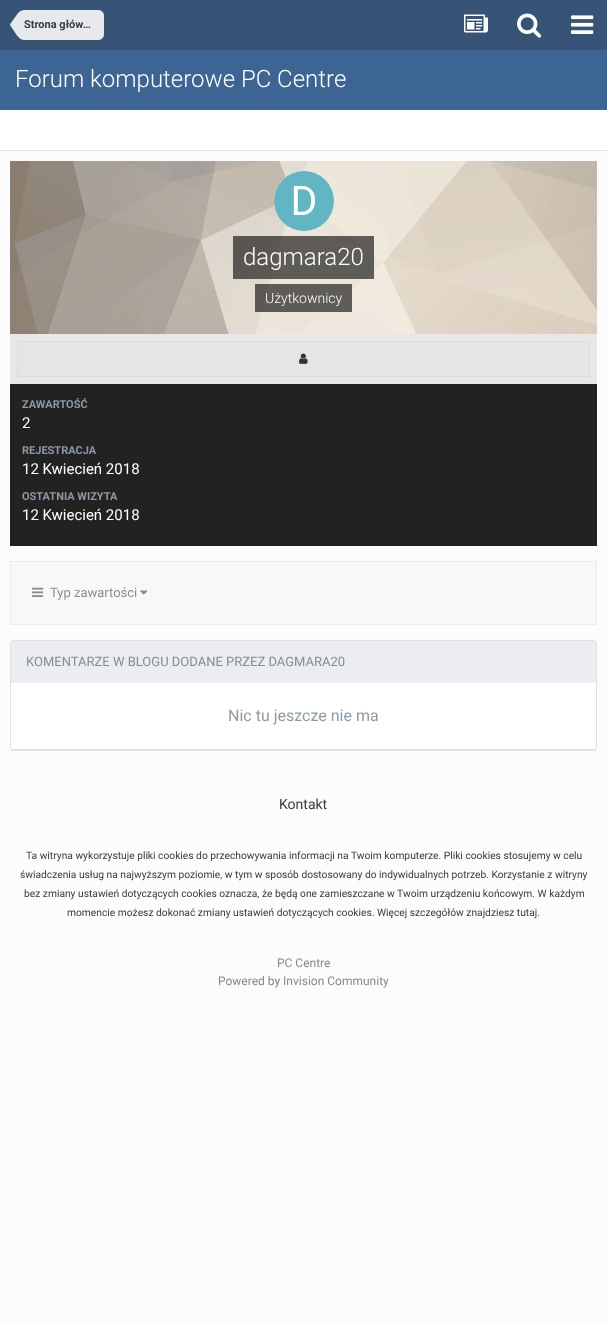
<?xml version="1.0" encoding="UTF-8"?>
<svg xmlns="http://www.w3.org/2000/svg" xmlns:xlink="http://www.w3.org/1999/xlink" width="607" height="1323">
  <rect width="100%" height="100%" fill="#fcfcfc" />
  <rect y="150" width="607" height="1" fill="#e3e3e3" />
  <rect width="607" height="50" fill="#375476" />
  <path d="M 24 10 h 74 c 3.5 0 6 2.5 6 6 v 18 c 0 3.5 -2.5 6 -6 6 h -74 z" fill="#e8e9eb" />
  <path d="M 24 25 v 15 c -2 0 -4.5 -1.5 -7 -4.5 l -7 -10.5 z m 0 0 h -14 c 0 -1 8.5 -12.5 9 -13 c 1.5 -1 3 -2 5 -2 z" fill="#e8e9eb" />
  <image x="464" y="14" width="24" height="19" xlink:href="image1.png" />
  <image x="517" y="13" width="25" height="25" xlink:href="image2.png" />
  <image x="571" y="15" width="23" height="19" xlink:href="image3.png" />
  <rect y="50" width="607" height="60" fill="#3d6594" />
  <rect y="110" width="607" height="40" fill="#ffffff" />
  <rect x="10" y="161" width="587" height="173" fill="#ffd599" />
  <image x="10" y="161" width="587" height="173" xlink:href="image4.png" />
  <circle cx="304" cy="201" r="30" fill="#ffffff" />
  <image x="274" y="171" width="60" height="60" xlink:href="image5.png" />
  <rect x="233" y="236" width="141" height="43" fill="#000000" fill-opacity="0.6" />
  <rect x="255" y="284" width="97" height="28" fill="#000000" fill-opacity="0.6" />
  <rect x="10" y="334" width="587" height="50" fill="#e6e8eb" />
  <rect x="17" y="341" width="573" height="36" rx="3" fill="#e5e5e5" />
  <rect x="17.5" y="341.5" width="572" height="35" fill="none" stroke="#000000" stroke-opacity="0.03" />
  <image x="299" y="353" width="9" height="11" xlink:href="image6.png" />
  <rect x="10" y="384" width="587" height="162" fill="#222222" />
  <rect x="160" y="396" width="1" height="36" fill="#1f1f1f" />
  <rect x="160" y="442" width="1" height="36" fill="#1f1f1f" />
  <rect x="160" y="488" width="1" height="36" fill="#1f1f1f" />
  <rect x="10.5" y="561.5" width="586" height="63" fill="#f8f8f8" stroke="#ececec" />
  <image x="32" y="587" width="12" height="10" xlink:href="image7.png" />
  <image x="140" y="590" width="8" height="5" xlink:href="image8.png" />
  <rect x="10" y="640" width="587" height="110" fill="#ffffff" />
  <path d="M 10 747 v 1 c 0 2 1 3 3 3 h 581 c 2 0 3 -1 3 -3 v -1 c 0 2 -1 3 -3 3 h -581 c -2 0 -3 -1 -3 -3 z" fill="#000000" fill-opacity="0.1" />
  <rect x="10.5" y="640.5" width="586" height="109" rx="2.5" fill="#ffffff" stroke="#e0e0e0" />
  <path d="M 13 641 h 581 c 1 0 2 1 2 2 v 40 h -585 v -40 c 0 -1 1 -2 2 -2 z" fill="#ebedf0" />
  <text x="24" y="28" style="font-family: Roboto; font-size: 11px; font-weight: bold; fill: #353c41">Strona głów…</text>
  <text x="15" y="87" style="font-family: Roboto; font-size: 24px; font-weight: 300; fill: #ffffff">Forum komputerowe PC Centre</text>
  <text x="243" y="265" style="font-family: Roboto; font-size: 24px; font-weight: 300; fill: #ffffff">dagmara20</text>
  <text x="265" y="303" style="font-family: Roboto; font-size: 14px; font-weight: 300; fill: #ffffff">Użytkownicy</text>
  <text x="22" y="408" style="font-family: Roboto; font-size: 11px; font-weight: bold; fill: #8d9aa6">ZAWARTOŚĆ</text>
  <text x="22" y="428" style="font-family: Roboto; font-size: 15px; fill: #ffffff">2</text>
  <text x="22" y="454" style="font-family: Roboto; font-size: 11px; font-weight: bold; fill: #8d9aa6">REJESTRACJA</text>
  <text x="22" y="474" style="font-family: Roboto; font-size: 15px; fill: #ffffff">12 Kwiecień 2018</text>
  <text x="22" y="500" style="font-family: Roboto; font-size: 11px; font-weight: bold; fill: #8d9aa6">OSTATNIA WIZYTA</text>
  <text x="22" y="520" style="font-family: Roboto; font-size: 15px; fill: #ffffff">12 Kwiecień 2018</text>
  <text x="50" y="597" style="font-family: Roboto; font-size: 13px; fill: #8c8c8c">Typ zawartości</text>
  <text x="26" y="666" style="font-family: Roboto; font-size: 13px; fill: #828e99">KOMENTARZE W BLOGU DODANE PRZEZ DAGMARA20</text>
  <text x="228" y="721" style="font-family: Roboto; font-size: 16px; fill: #8d9aa6">Nic tu jeszcze nie ma</text>
  <text x="279" y="809" style="font-family: Roboto; font-size: 14px; fill: #353c41">Kontakt</text>
  <text x="26" y="859" style="font-family: Roboto; font-size: 10.25px; fill: #353c41">Ta witryna wykorzystuje pliki cookies do przechowywania informacji na Twoim komputerze. Pliki cookies stosujemy w celu</text>
  <text x="20" y="878" style="font-family: Roboto; font-size: 10.25px; fill: #353c41">świadczenia usług na najwyższym poziomie, w tym w sposób dostosowany do indywidualnych potrzeb. Korzystanie z witryny</text>
  <text x="24" y="897" style="font-family: Roboto; font-size: 10.25px; fill: #353c41">bez zmiany ustawień dotyczących cookies oznacza, że będą one zamieszczane w Twoim urządzeniu końcowym. W każdym</text>
  <text x="67" y="916" style="font-family: Roboto; font-size: 10.25px; fill: #353c41">momencie możesz dokonać zmiany ustawień dotyczących cookies. Więcej szczegółów znajdziesz tutaj.</text>
  <text x="277" y="967" style="font-family: Roboto; font-size: 12px; fill: #85898c">PC Centre</text>
  <text x="218" y="985" style="font-family: Roboto; font-size: 12px; fill: #85898c">Powered by Invision Community</text>
</svg>
